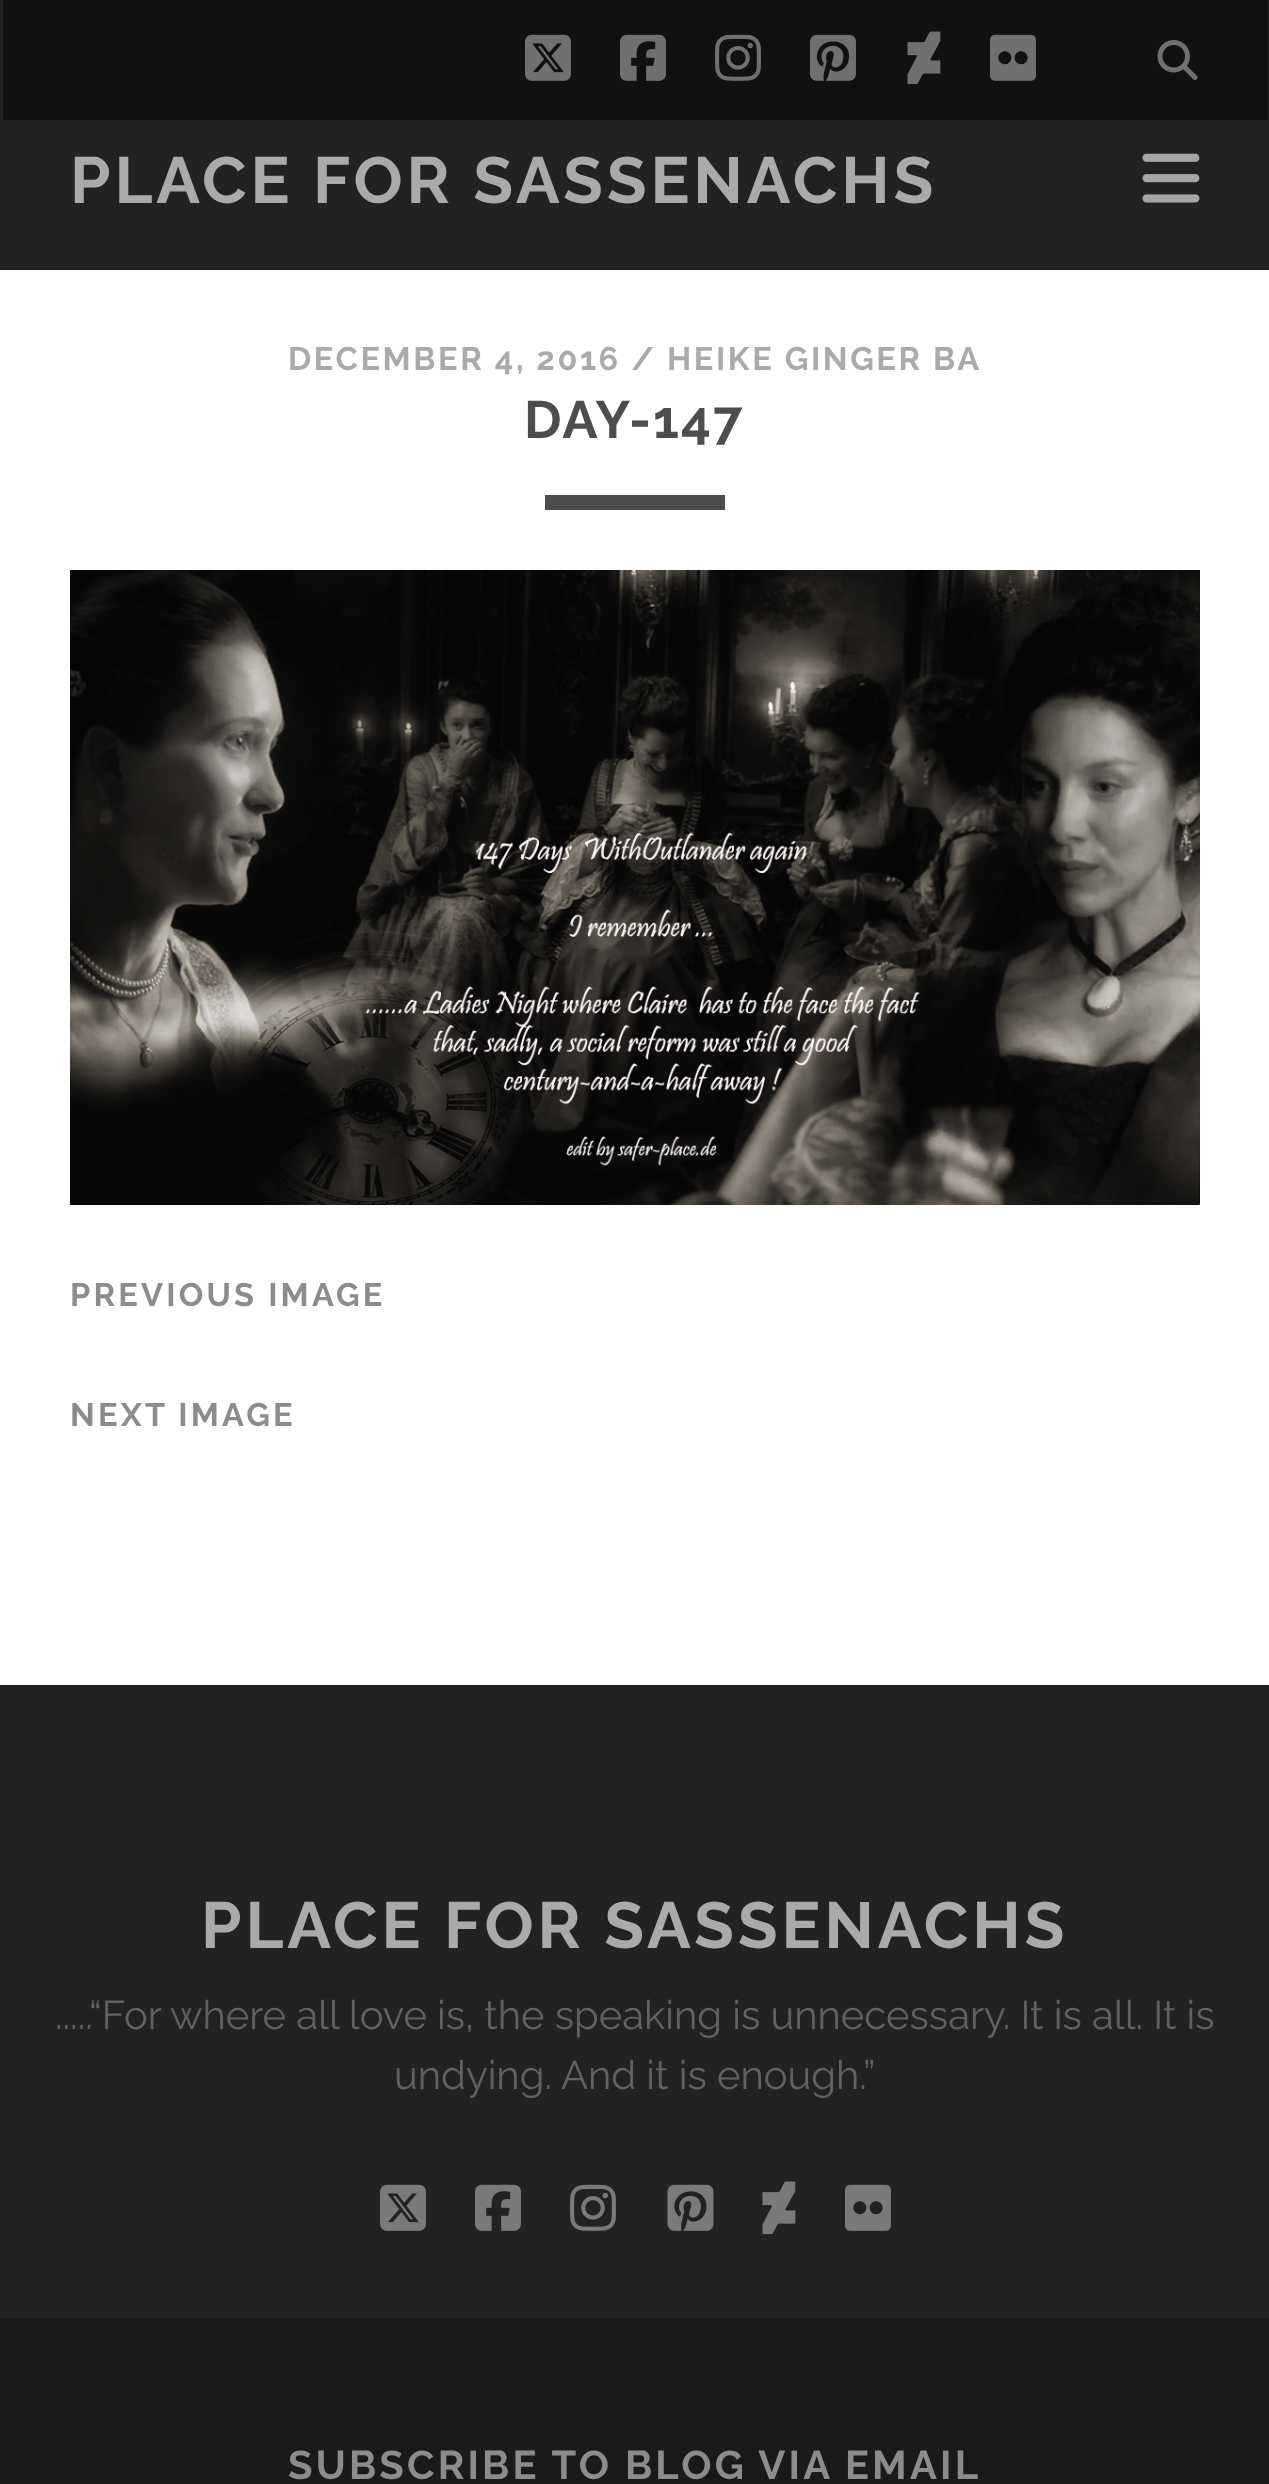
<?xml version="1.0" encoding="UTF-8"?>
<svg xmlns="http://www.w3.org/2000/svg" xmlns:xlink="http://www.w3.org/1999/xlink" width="1269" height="2484">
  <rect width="100%" height="100%" fill="#222222" />
  <rect x="3" width="1265" height="120" fill="#111111" />
  <image x="525" y="34" width="46" height="47" xlink:href="image1.png" />
  <image x="620" y="34" width="46" height="47" xlink:href="image2.png" />
  <image x="715" y="34" width="46" height="47" xlink:href="image3.png" />
  <image x="810" y="34" width="46" height="47" xlink:href="image4.png" />
  <image x="907" y="31" width="34" height="54" xlink:href="image5.png" />
  <image x="990" y="34" width="46" height="47" xlink:href="image6.png" />
  <image x="1157" y="40" width="41" height="40" xlink:href="image7.png" />
  <image x="1142" y="153" width="58" height="50" xlink:href="image8.png" />
  <rect y="270" width="1269" height="1415" fill="#ffffff" />
  <rect x="545" y="495" width="180" height="15" fill="#4d4d4d" />
  <image x="70" y="570" width="1130" height="635" xlink:href="image9.png" />
  <image x="380" y="2184" width="46" height="47" xlink:href="image10.png" />
  <image x="475" y="2184" width="46" height="47" xlink:href="image11.png" />
  <image x="570" y="2184" width="46" height="47" xlink:href="image12.png" />
  <image x="667" y="2184" width="47" height="47" xlink:href="image13.png" />
  <image x="762" y="2181" width="34" height="54" xlink:href="image14.png" />
  <image x="845" y="2184" width="46" height="47" xlink:href="image15.png" />
  <rect y="2318" width="1269" height="166" fill="#1a1a1a" />
  <text x="70" y="203" style="font-family: Raleway; font-size: 65px; font-weight: bold; letter-spacing: 3.9px; fill: #aaaaaa">PLACE FOR SASSENACHS</text>
  <text x="288" y="370" style="font-family: Raleway; font-size: 32.5px; font-weight: bold; letter-spacing: 2.6px; fill: #aaaaaa">DECEMBER 4, 2016 / HEIKE GINGER BA</text>
  <text x="524" y="438" style="font-family: Raleway; font-size: 52.5px; font-weight: bold; letter-spacing: 2px; fill: #4d4d4d">DAY-147</text>
  <text x="70" y="1306" style="font-family: Raleway; font-size: 32.5px; font-weight: bold; letter-spacing: 3.2px; fill: #8c8c8c">PREVIOUS IMAGE</text>
  <text x="70" y="1426" style="font-family: Raleway; font-size: 32.5px; font-weight: bold; letter-spacing: 3.2px; fill: #8c8c8c">NEXT IMAGE</text>
  <text x="201" y="1948" style="font-family: Raleway; font-size: 65px; font-weight: bold; letter-spacing: 3.9px; fill: #aaaaaa">PLACE FOR SASSENACHS</text>
  <text x="55" y="2029" style="font-family: Raleway; font-size: 40px; fill: #626262">.....“For where all love is, the speaking is unnecessary. It is all. It is</text>
  <text x="394" y="2089" style="font-family: Raleway; font-size: 40px; fill: #626262">undying. And it is enough.”</text>
  <text x="288" y="2479" style="font-family: Raleway; font-size: 40px; font-weight: bold; letter-spacing: 3.2px; fill: #8c8c8c">SUBSCRIBE TO BLOG VIA EMAIL</text>
</svg>
